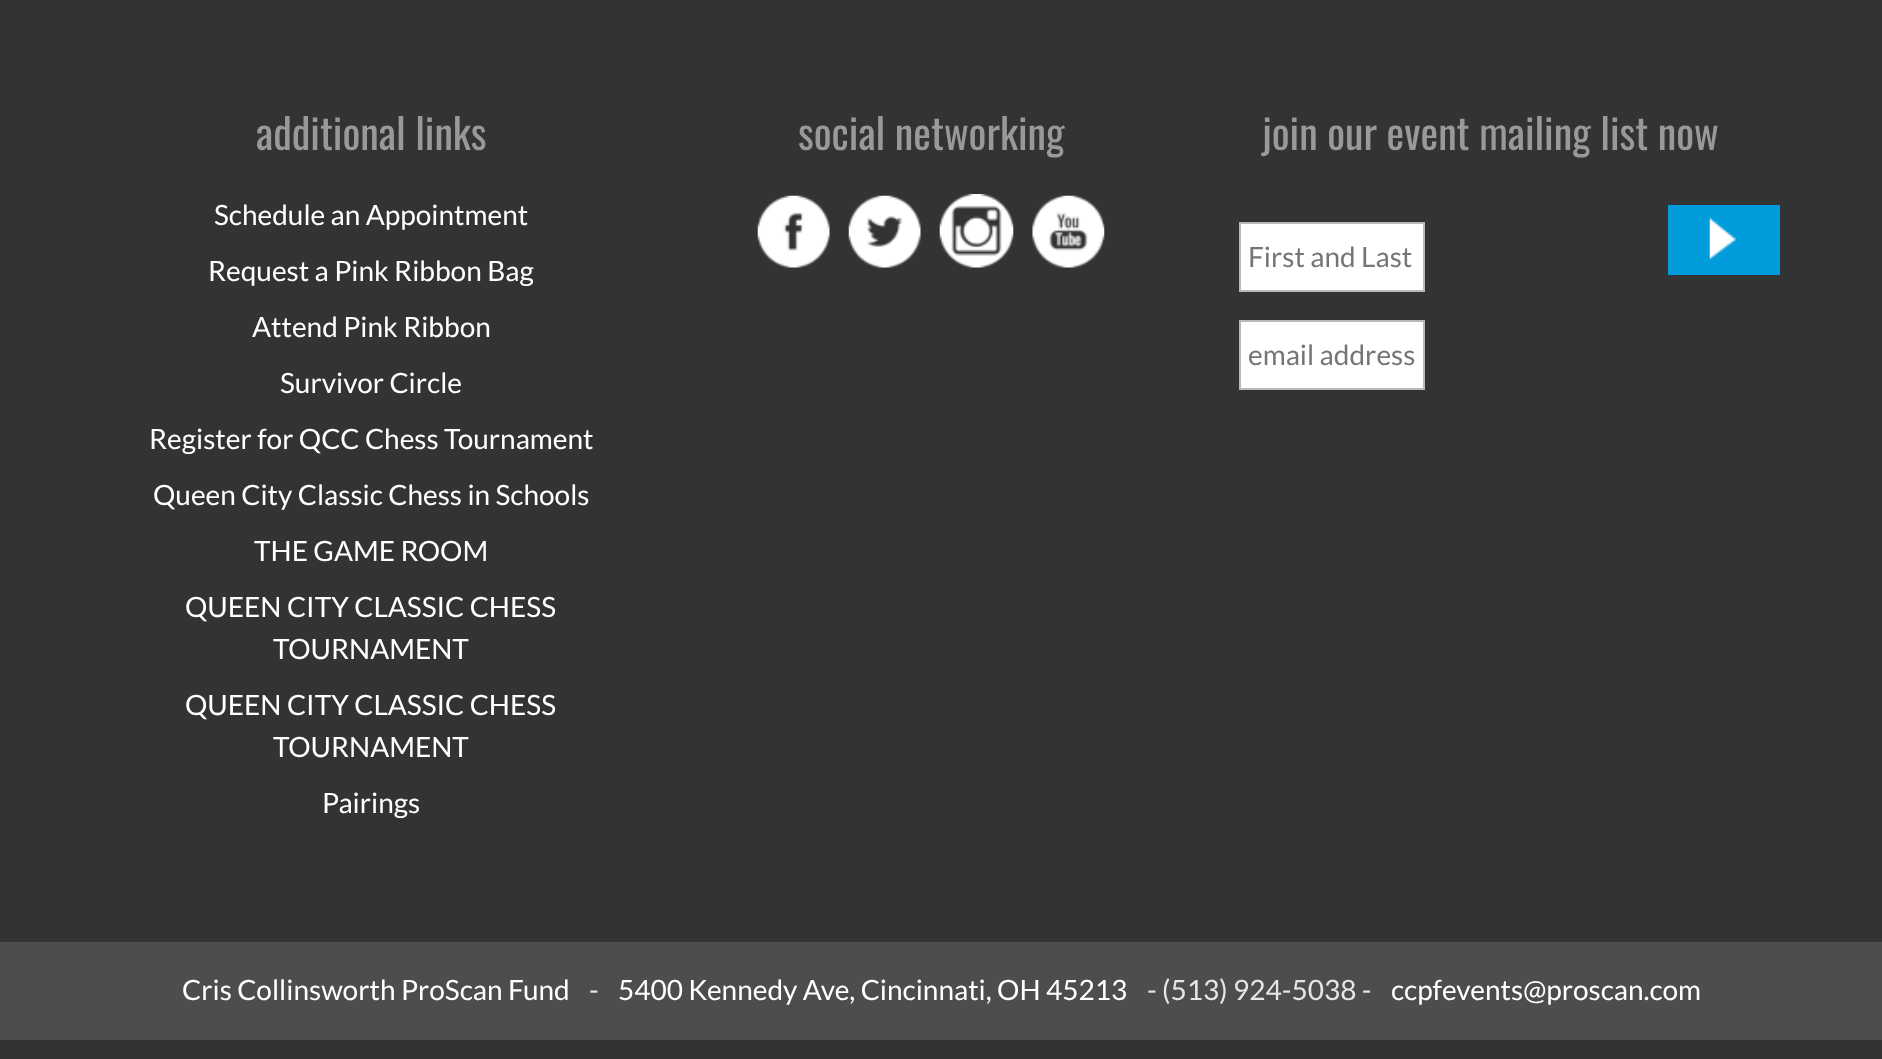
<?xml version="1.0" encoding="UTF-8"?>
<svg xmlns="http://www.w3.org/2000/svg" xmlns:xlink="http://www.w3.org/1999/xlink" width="1882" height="1059">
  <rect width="100%" height="100%" fill="#333333" />
  <image x="757" y="195" width="73" height="73" xlink:href="image1.png" />
  <image x="848" y="195" width="73" height="73" xlink:href="image2.png" />
  <image x="939" y="194" width="75" height="74" xlink:href="image3.png" />
  <image x="1032" y="195" width="73" height="73" xlink:href="image4.png" />
  <rect x="1240" y="223" width="184" height="68" fill="#ffffff" stroke="#b8b8b8" stroke-width="2" />
  <rect x="1240" y="321" width="184" height="68" fill="#ffffff" stroke="#b8b8b8" stroke-width="2" />
  <rect x="1668" y="205" width="112" height="70" fill="#019cdb" />
  <image x="1709" y="218" width="27" height="41" xlink:href="image5.png" />
  <rect y="942" width="1882" height="98" fill="#4d4d4d" />
  <text x="256" y="150" style="font-family: Oswald; font-size: 42px; fill: #999999">additional links</text>
  <text x="214" y="225" style="font-family: Lato; font-size: 28px; fill: #ffffff">Schedule an Appointment</text>
  <text x="208" y="281" style="font-family: Lato; font-size: 28px; fill: #ffffff">Request a Pink Ribbon Bag</text>
  <text x="252" y="337" style="font-family: Lato; font-size: 28px; fill: #ffffff">Attend Pink Ribbon</text>
  <text x="280" y="393" style="font-family: Lato; font-size: 28px; fill: #ffffff">Survivor Circle</text>
  <text x="149" y="449" style="font-family: Lato; font-size: 28px; fill: #ffffff">Register for QCC Chess Tournament</text>
  <text x="153" y="505" style="font-family: Lato; font-size: 28px; fill: #ffffff">Queen City Classic Chess in Schools</text>
  <text x="254" y="561" style="font-family: Lato; font-size: 28px; fill: #ffffff">THE GAME ROOM</text>
  <text x="185" y="617" style="font-family: Lato; font-size: 28px; fill: #ffffff">QUEEN CITY CLASSIC CHESS</text>
  <text x="273" y="659" style="font-family: Lato; font-size: 28px; fill: #ffffff">TOURNAMENT</text>
  <text x="185" y="715" style="font-family: Lato; font-size: 28px; fill: #ffffff">QUEEN CITY CLASSIC CHESS</text>
  <text x="273" y="757" style="font-family: Lato; font-size: 28px; fill: #ffffff">TOURNAMENT</text>
  <text x="322" y="813" style="font-family: Lato; font-size: 28px; fill: #ffffff">Pairings</text>
  <text x="798" y="150" style="font-family: Oswald; font-size: 42px; fill: #999999">social networking</text>
  <text x="1262" y="150" style="font-family: Oswald; font-size: 42px; fill: #999999">join our event mailing list now</text>
  <text x="1248" y="267" style="font-family: Lato; font-size: 28px; fill: #757575">First and Last</text>
  <text x="1248" y="365" style="font-family: Lato; font-size: 28px; fill: #757575">email address</text>
  <text x="182" y="1000" style="font-family: Lato; font-size: 28px; fill: #ffffff">Cris Collinsworth ProScan Fund</text>
  <text x="589" y="1000" style="font-family: Lato; font-size: 28px; fill: #e6e6e6">-</text>
  <text x="618" y="1000" style="font-family: Lato; font-size: 28px; fill: #ffffff">5400 Kennedy Ave, Cincinnati, OH 45213</text>
  <text x="1147" y="1000" style="font-family: Lato; font-size: 28px; fill: #e6e6e6">- (513) 924-5038 -</text>
  <text x="1391" y="1000" style="font-family: Lato; font-size: 28px; fill: #ffffff">ccpfevents@proscan.com</text>
</svg>
